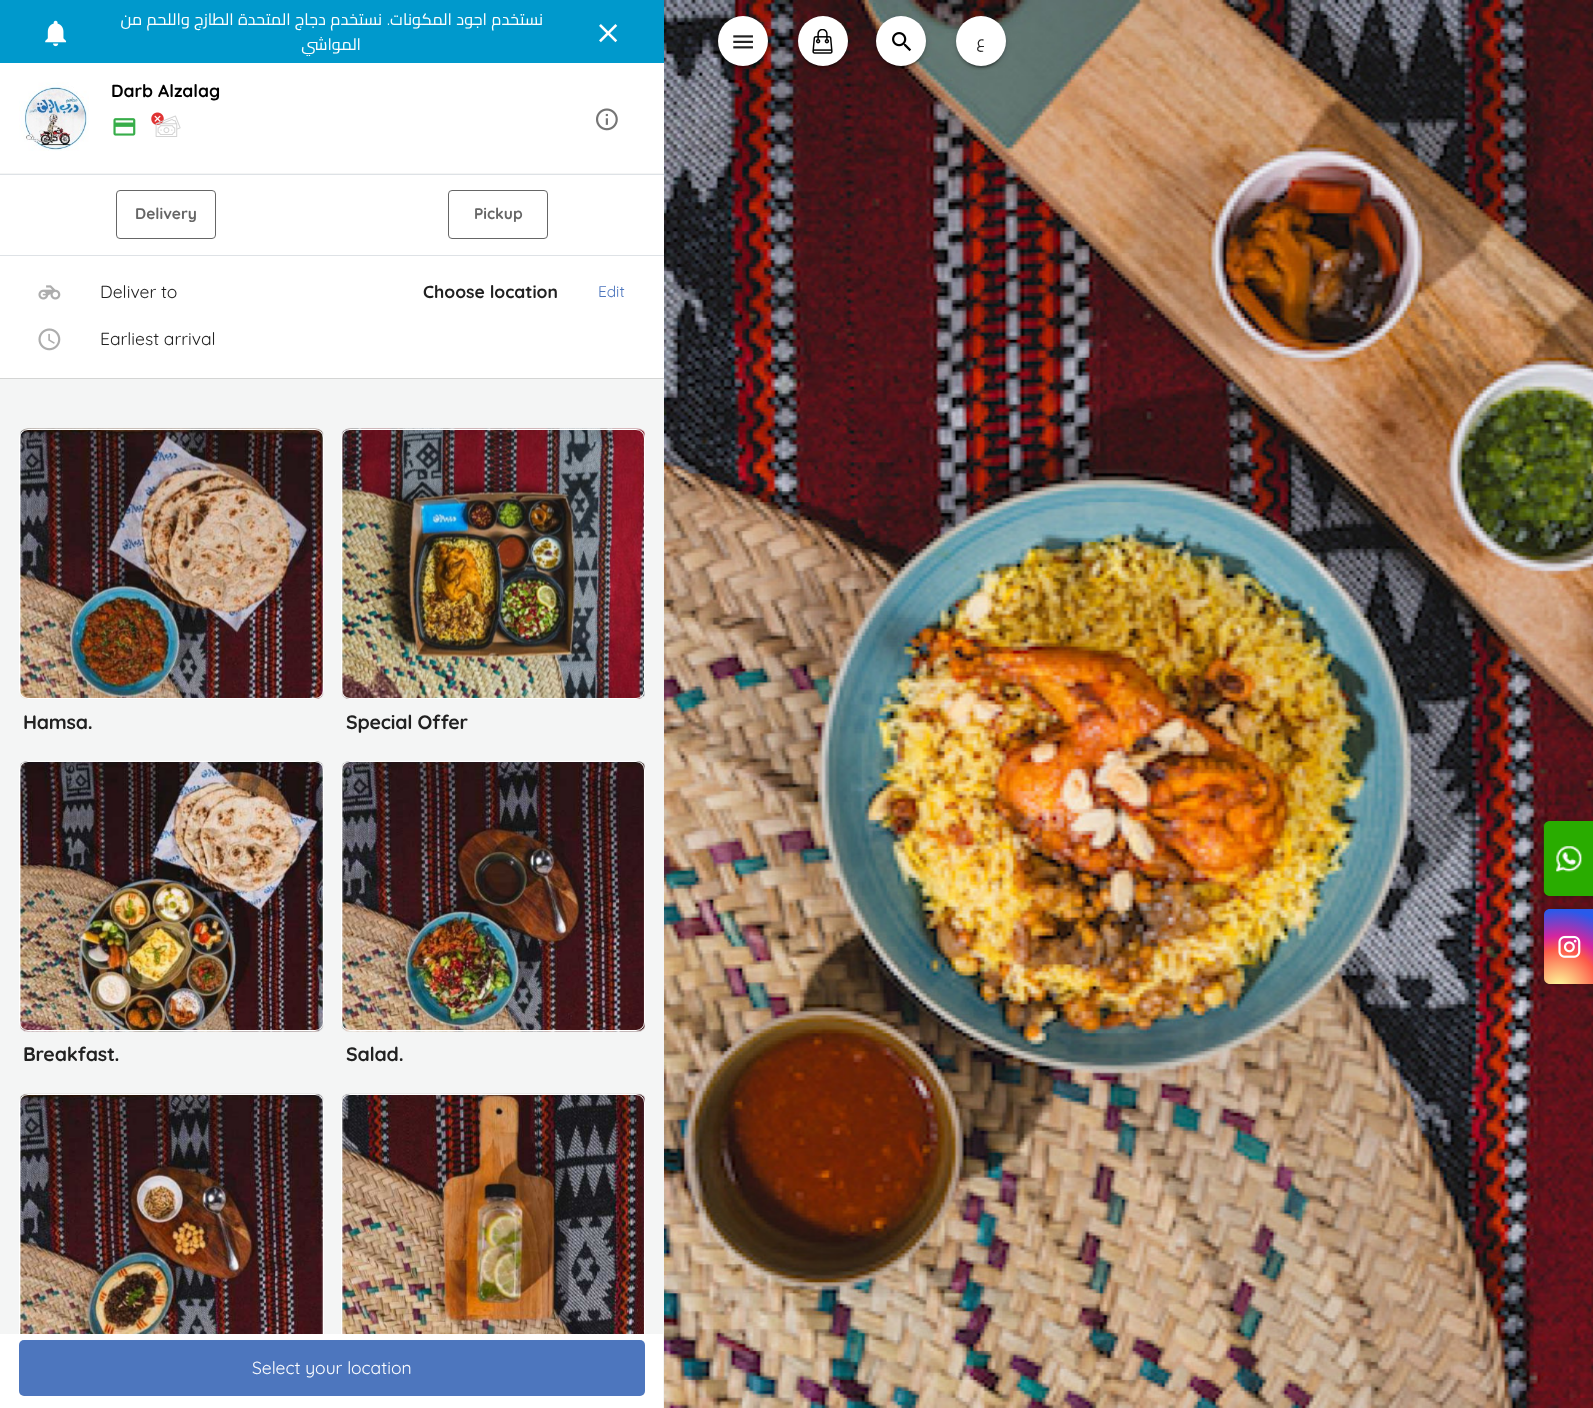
<?xml version="1.0" encoding="UTF-8"?>
<svg xmlns="http://www.w3.org/2000/svg" xmlns:xlink="http://www.w3.org/1999/xlink" width="1593" height="1408">
  <defs>
    <radialGradient id="g1" gradientUnits="userSpaceOnUse" cx="1559" cy="989" r="88"><stop offset="0" stop-color="#fdf497" /><stop offset="0.05" stop-color="#fdf497" /><stop offset="0.45" stop-color="#fd5949" /><stop offset="0.6" stop-color="#d6249f" /><stop offset="0.9" stop-color="#285aeb" /></radialGradient>
    <clipPath id="clip1"><rect x="110" y="6" width="443" height="50" /></clipPath>
  </defs>
  <rect width="100%" height="100%" fill="#f4f5f5" />
  <rect width="664" height="63" fill="#0099cc" />
  <image x="45" y="20" width="22" height="27" xlink:href="image1.png" />
  <image x="599" y="24" width="19" height="19" xlink:href="image2.png" />
  <rect y="63" width="664" height="110" fill="#ffffff" />
  <image x="19" y="82" width="70" height="69" xlink:href="image3.png" />
  <image x="113" y="118" width="23" height="18" xlink:href="image4.png" />
  <image x="151" y="112" width="13" height="13" xlink:href="image5.png" />
  <image x="155" y="115" width="26" height="22" xlink:href="image6.png" />
  <image x="596" y="108" width="22" height="23" xlink:href="image7.png" />
  <rect y="175" width="664" height="203" fill="#ffffff" />
  <rect y="378" width="664" height="1" fill="#d4d5d4" />
  <rect y="174" width="664" height="1" fill="#dee2e6" />
  <rect y="255" width="664" height="1" fill="#dee2e6" />
  <rect x="116.5" y="190.5" width="99" height="48" rx="3.5" fill="none" stroke="#666666" />
  <rect x="448.5" y="190.5" width="99" height="48" rx="3.5" fill="none" stroke="#666666" />
  <image x="38" y="285" width="23" height="15" xlink:href="image8.png" />
  <image x="38" y="328" width="23" height="23" xlink:href="image9.png" />
  <image x="20" y="428" width="304" height="271" xlink:href="image10.png" />
  <rect x="19.5" y="429.5" width="304" height="269" rx="8.5" fill="none" stroke="#ffffff" />
  <image x="341" y="428" width="304" height="271" xlink:href="image11.png" />
  <rect x="341.5" y="429.5" width="303" height="269" rx="8.5" fill="none" stroke="#ffffff" />
  <image x="20" y="761" width="304" height="271" xlink:href="image12.png" />
  <rect x="19.5" y="761.5" width="304" height="269" rx="8.5" fill="none" stroke="#ffffff" />
  <image x="341" y="761" width="304" height="271" xlink:href="image13.png" />
  <rect x="341.5" y="761.5" width="303" height="269" rx="8.5" fill="none" stroke="#ffffff" />
  <image x="20" y="1093" width="304" height="241" xlink:href="image14.png" />
  <rect x="19.5" y="1094.5" width="304" height="269" rx="8.5" fill="none" stroke="#ffffff" />
  <image x="341" y="1093" width="304" height="241" xlink:href="image15.png" />
  <rect x="341.5" y="1094.5" width="303" height="269" rx="8.5" fill="none" stroke="#ffffff" />
  <rect y="1334" width="663" height="74" fill="#ffffff" />
  <rect x="19" y="1340" width="626" height="56" rx="5" fill="#4d76be" />
  <image x="664" y="0" width="929" height="1408" xlink:href="image16.png" />
  <rect x="718" y="18" width="50" height="50" rx="25" fill="#000000" fill-opacity="0.12" filter="blur(3px)" />
  <rect x="718" y="19" width="50" height="50" rx="25" fill="#000000" fill-opacity="0.14" filter="blur(1px)" />
  <rect x="720" y="23" width="45" height="45" rx="22.5" fill="#000000" fill-opacity="0.2" filter="blur(0.5px)" />
  <circle cx="743" cy="41" r="25" fill="#ffffff" />
  <image x="733" y="35" width="20" height="14" xlink:href="image17.png" />
  <rect x="798" y="18" width="50" height="50" rx="25" fill="#000000" fill-opacity="0.12" filter="blur(3px)" />
  <rect x="798" y="19" width="50" height="50" rx="25" fill="#000000" fill-opacity="0.14" filter="blur(1px)" />
  <rect x="800" y="23" width="45" height="45" rx="22.5" fill="#000000" fill-opacity="0.2" filter="blur(0.5px)" />
  <circle cx="823" cy="41" r="25" fill="#ffffff" />
  <image x="812" y="29" width="21" height="25" xlink:href="image18.png" />
  <rect x="876" y="18" width="50" height="50" rx="25" fill="#000000" fill-opacity="0.12" filter="blur(3px)" />
  <rect x="876" y="19" width="50" height="50" rx="25" fill="#000000" fill-opacity="0.14" filter="blur(1px)" />
  <rect x="879" y="23" width="45" height="45" rx="22.5" fill="#000000" fill-opacity="0.2" filter="blur(0.5px)" />
  <circle cx="901" cy="41" r="25" fill="#ffffff" />
  <image x="892" y="32" width="20" height="20" xlink:href="image19.png" />
  <rect x="956" y="18" width="50" height="50" rx="25" fill="#000000" fill-opacity="0.12" filter="blur(3px)" />
  <rect x="956" y="19" width="50" height="50" rx="25" fill="#000000" fill-opacity="0.14" filter="blur(1px)" />
  <rect x="959" y="23" width="45" height="45" rx="22.5" fill="#000000" fill-opacity="0.2" filter="blur(0.5px)" />
  <circle cx="981" cy="41" r="25" fill="#ffffff" />
  <rect x="1543" y="821" width="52" height="78" rx="8" fill="#000000" fill-opacity="0.15" filter="blur(2px)" />
  <path d="M 1550 821 h 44 v 75 h -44 c -3.5 0 -6 -2.5 -6 -6 v -63 c 0 -3.5 2.5 -6 6 -6 z" fill="#29ac00" />
  <image x="1543" y="822" width="40" height="74" xlink:href="image20.png" />
  <rect x="1543" y="909" width="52" height="77" rx="8" fill="#000000" fill-opacity="0.15" filter="blur(2px)" />
  <path d="M 1550 909 h 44 v 75 h -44 c -3.5 0 -6 -2.5 -6 -6 v -63 c 0 -3.5 2.5 -6 6 -6 z" fill="url(#g1)" />
  <image x="1558" y="935" width="23" height="23" xlink:href="image21.png" />
  <text x="382" y="25" word-spacing="0.75" style="font-family: Cairo; font-size: 16.25px; direction: rtl; fill: #ffffff">نستخدم دجاج المتحدة الطازج واللحم من</text>
  <text x="390" y="25" style="font-family: Quicksand; font-size: 16.25px; font-weight: 300; direction: rtl; fill: #ffffff">.</text>
  <text x="543" y="25" word-spacing="0.75" style="font-family: Cairo; font-size: 16.25px; direction: rtl; fill: #ffffff">نستخدم اجود المكونات</text>
  <g clip-path="url(#clip1)">
    <text x="361" y="50" style="font-family: Cairo; font-size: 16.25px; direction: rtl; fill: #ffffff">المواشي</text>
  </g>
  <text x="111" y="97" style="font-family: 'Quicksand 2'; font-size: 17.5px; font-weight: 300; fill: #000000">Darb Alzalag</text>
  <text x="135" y="219" style="font-family: 'Quicksand 2'; font-size: 15.5px; font-weight: 300; fill: #666666">Delivery</text>
  <text x="474" y="219" style="font-family: 'Quicksand 2'; font-size: 15.5px; font-weight: 300; fill: #666666">Pickup</text>
  <text x="100" y="298" style="font-family: Quicksand; font-size: 17.5px; font-weight: 300; fill: #212121">Deliver to</text>
  <text x="423" y="298" style="font-family: 'Quicksand 2'; font-size: 17.5px; font-weight: 300; fill: #212121">Choose location</text>
  <text x="598" y="297" style="font-family: Quicksand; font-size: 15.5px; font-weight: 300; fill: #4d76be">Edit</text>
  <text x="100" y="345" style="font-family: Quicksand; font-size: 17.5px; font-weight: 300; fill: #212121">Earliest arrival</text>
  <text x="23" y="729" style="font-family: 'Quicksand 2'; font-size: 19.5px; font-weight: 300; letter-spacing: -0.25px; fill: #212121">Hamsa.</text>
  <text x="346" y="729" style="font-family: 'Quicksand 2'; font-size: 19.5px; font-weight: 300; letter-spacing: -0.2px; fill: #212121">Special Offer</text>
  <text x="23" y="1061" style="font-family: 'Quicksand 2'; font-size: 19.5px; font-weight: 300; letter-spacing: -0.25px; fill: #212121">Breakfast.</text>
  <text x="346" y="1061" style="font-family: 'Quicksand 2'; font-size: 19.5px; font-weight: 300; letter-spacing: -0.2px; fill: #212121">Salad.</text>
  <text x="252" y="1374" style="font-family: Quicksand; font-size: 17.5px; font-weight: 300; fill: #ffffff">Select your location</text>
  <text x="985" y="47" style="font-family: Cairo; font-size: 15.5px; direction: rtl; fill: #212121">ع</text>
</svg>
